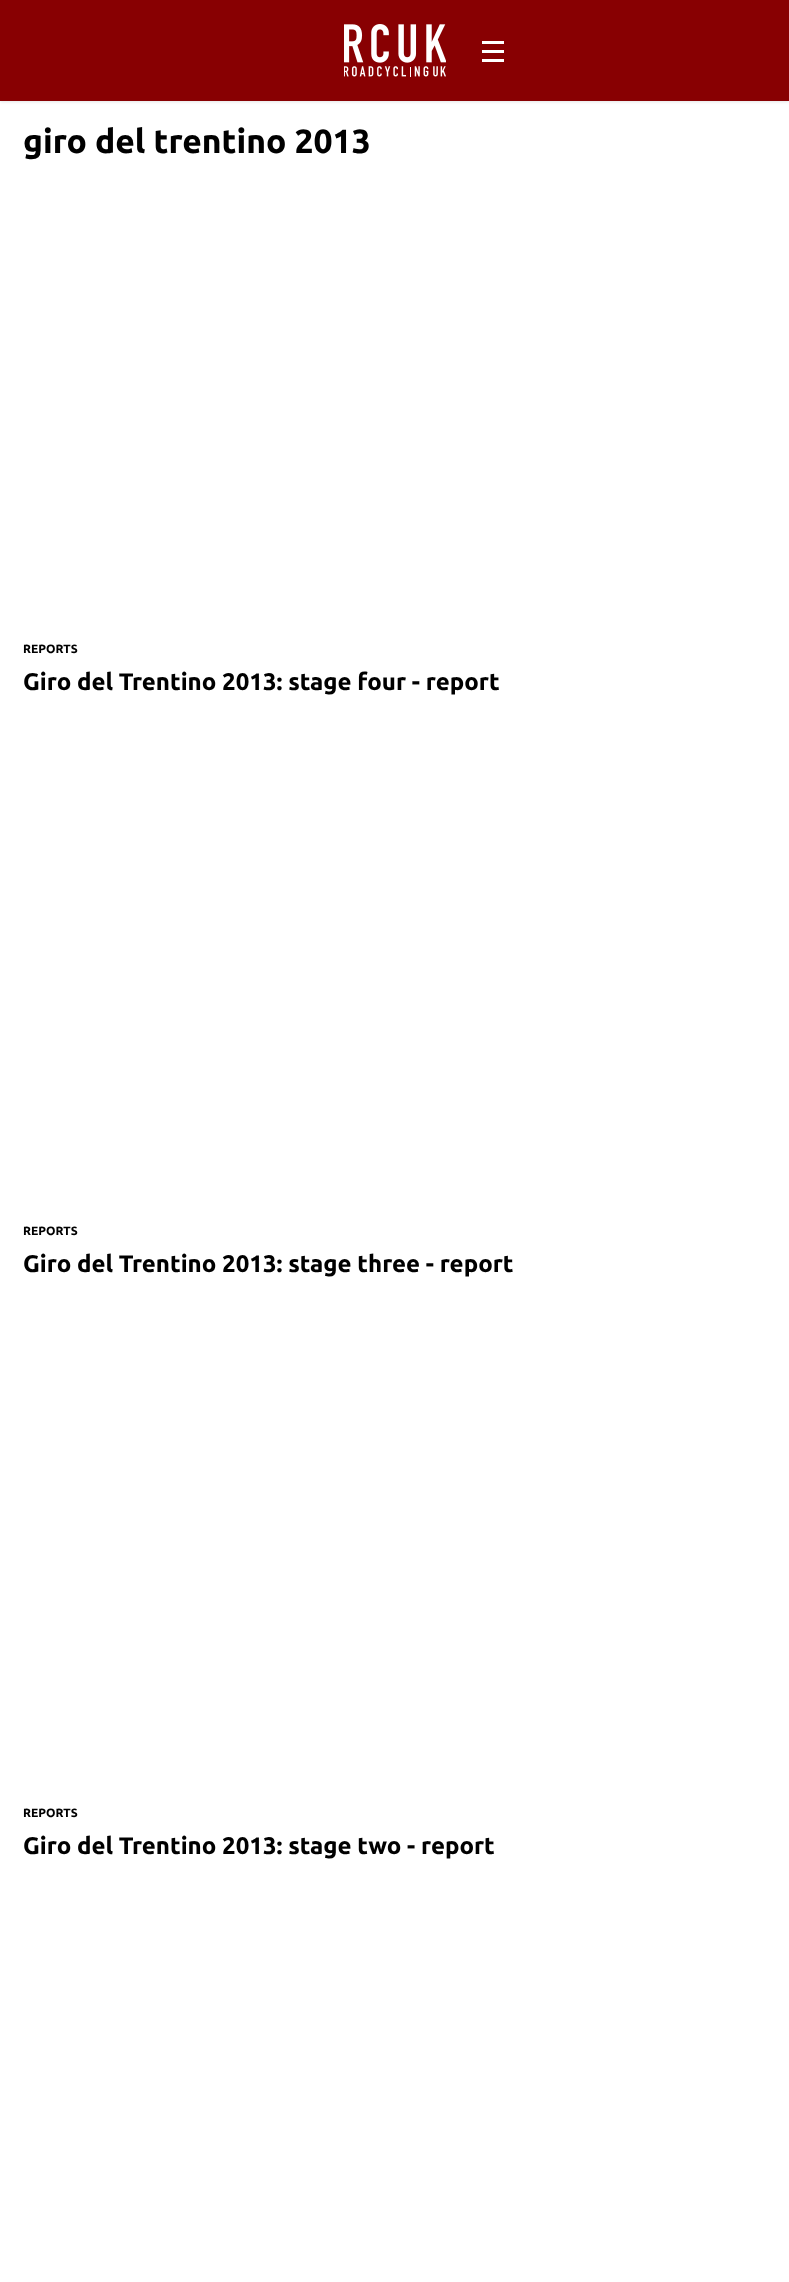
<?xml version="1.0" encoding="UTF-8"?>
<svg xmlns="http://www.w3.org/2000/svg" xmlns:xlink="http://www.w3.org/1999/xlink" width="789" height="2282">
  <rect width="100%" height="100%" fill="#ffffff" />
  <rect y="2" width="789" height="100" fill="#000000" fill-opacity="0.1" filter="blur(1.5px)" />
  <rect width="789" height="101" fill="#880002" />
  <image x="344" y="24" width="102" height="53" xlink:href="image1.png" />
  <rect x="482" y="50" width="22" height="3" fill="#ffffff" />
  <rect x="482" y="41" width="22" height="3" fill="#ffffff" />
  <rect x="482" y="59" width="22" height="3" fill="#ffffff" />
  <text x="23" y="153" style="font-family: Ubuntu; font-size: 33.6px; font-weight: bold; fill: #000000">giro del trentino 2013</text>
  <text x="23" y="653" style="font-family: Ubuntu; font-size: 12px; font-weight: bold; fill: #000000">REPORTS</text>
  <text x="23" y="690" style="font-family: Ubuntu; font-size: 24px; font-weight: bold; fill: #000000">Giro del Trentino 2013: stage four - report</text>
  <text x="23" y="1235" style="font-family: Ubuntu; font-size: 12px; font-weight: bold; fill: #000000">REPORTS</text>
  <text x="23" y="1272" style="font-family: Ubuntu; font-size: 24px; font-weight: bold; fill: #000000">Giro del Trentino 2013: stage three - report</text>
  <text x="23" y="1817" style="font-family: Ubuntu; font-size: 12px; font-weight: bold; fill: #000000">REPORTS</text>
  <text x="23" y="1854" style="font-family: Ubuntu; font-size: 24px; font-weight: bold; fill: #000000">Giro del Trentino 2013: stage two - report</text>
</svg>
